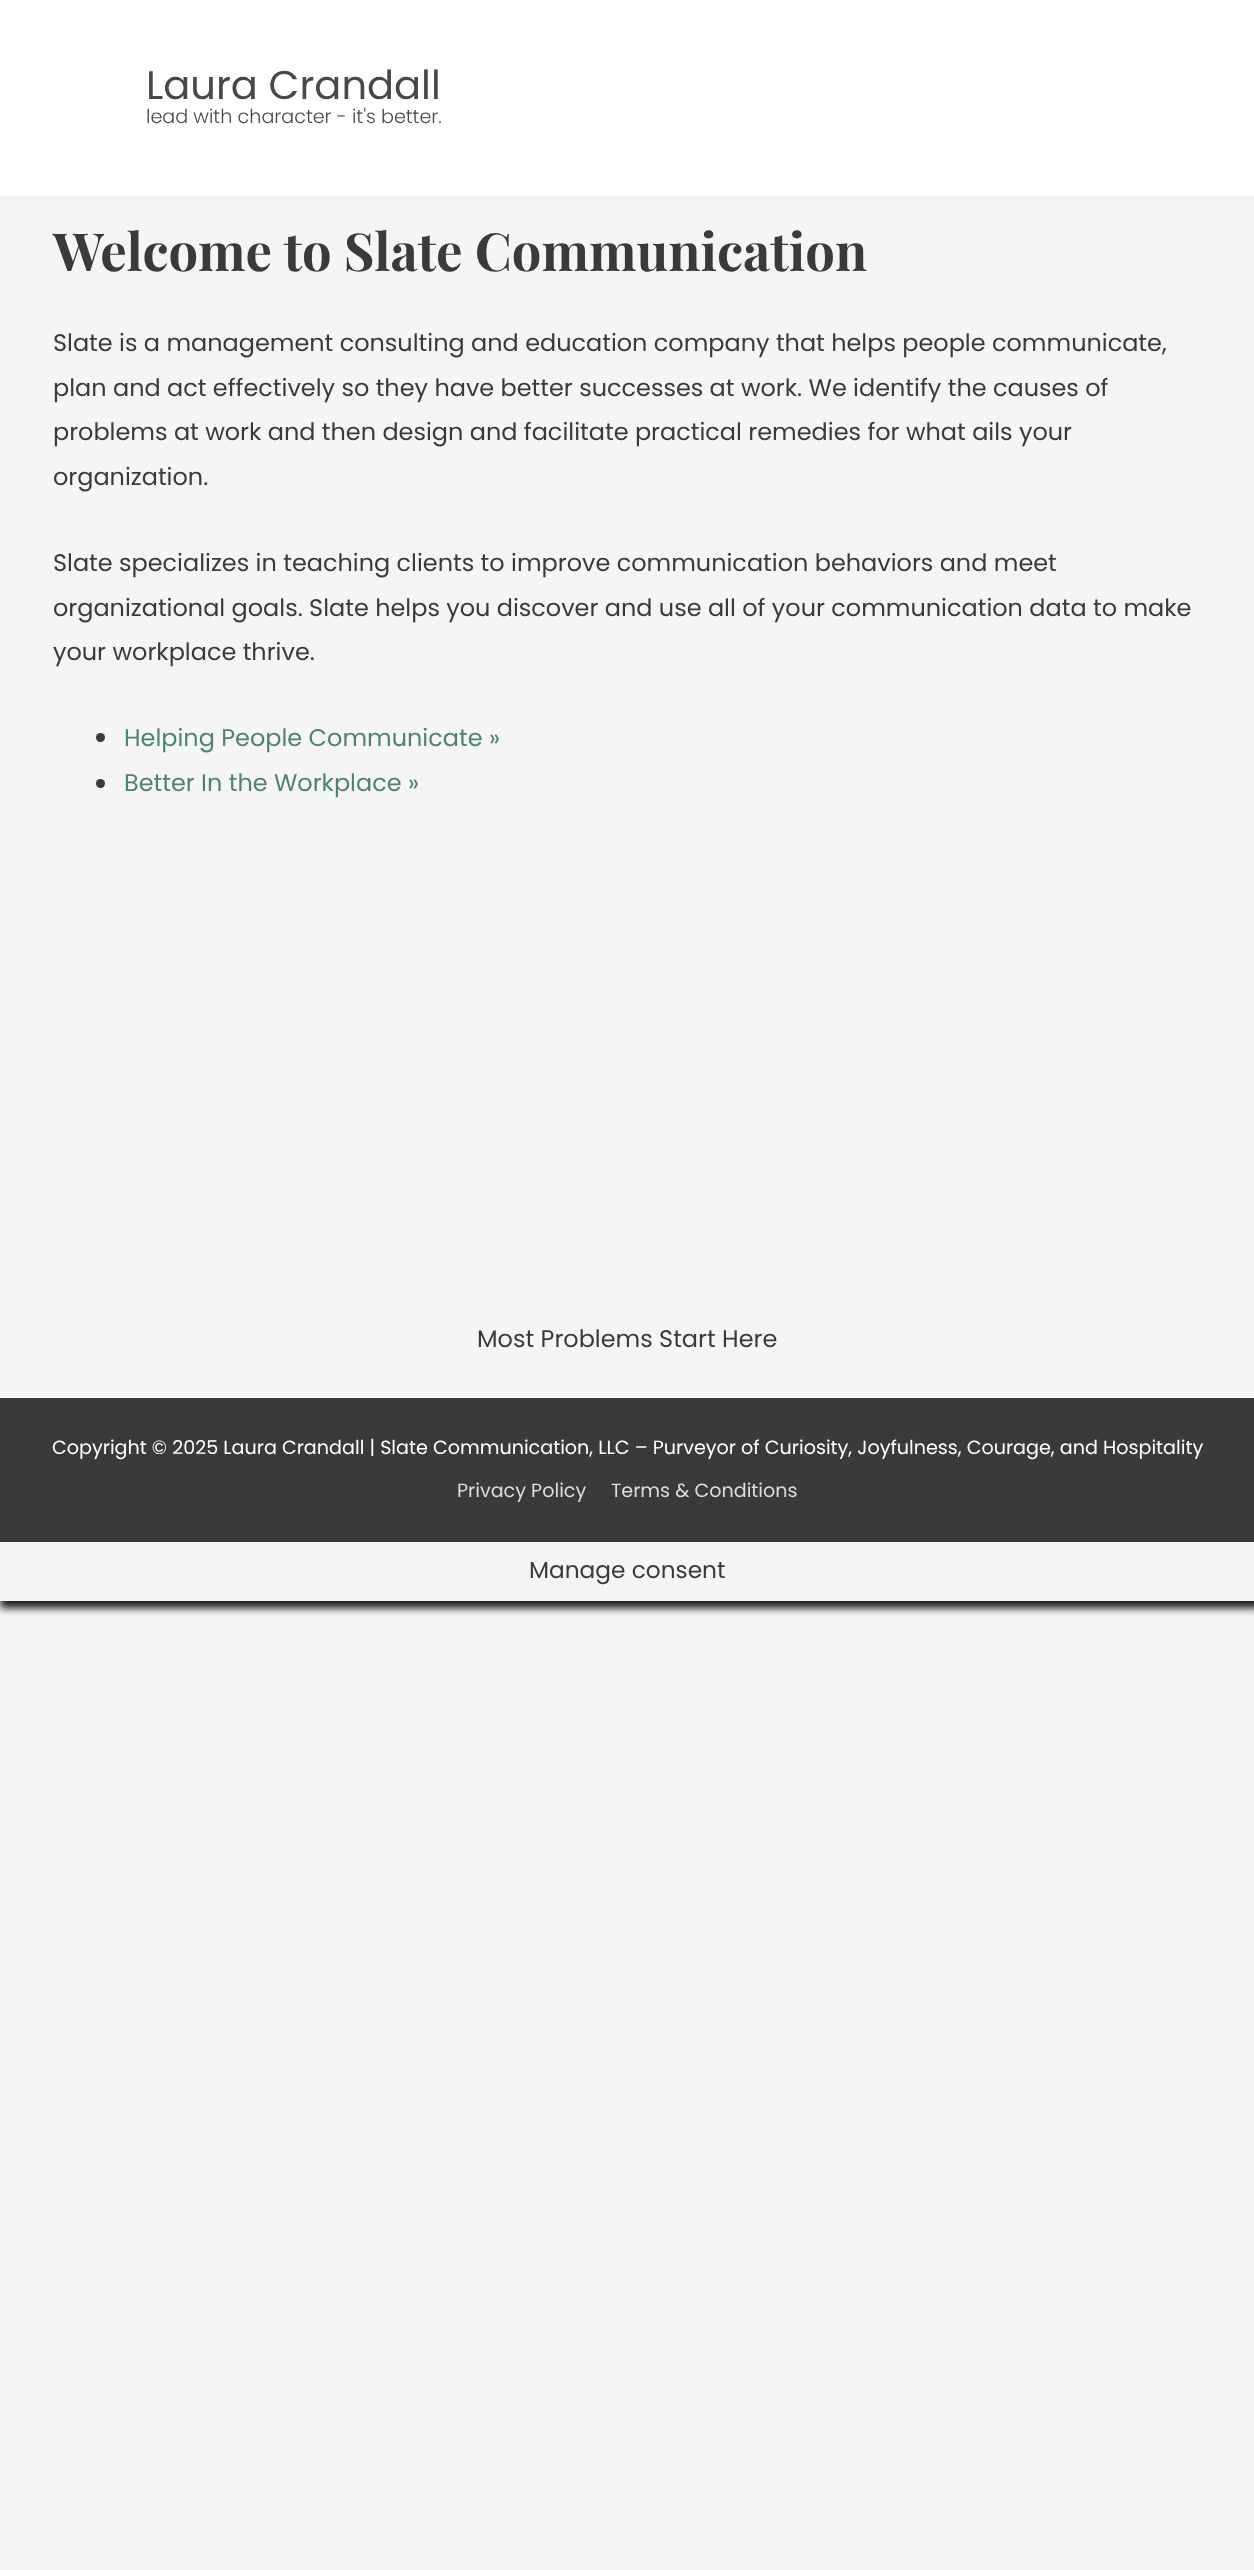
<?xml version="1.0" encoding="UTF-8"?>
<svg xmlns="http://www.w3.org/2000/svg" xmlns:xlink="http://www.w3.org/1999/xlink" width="1254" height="2570">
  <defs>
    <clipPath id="clip1"><rect x="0" y="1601" width="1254" height="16" /></clipPath>
  </defs>
  <rect width="100%" height="100%" fill="#f5f5f5" />
  <rect width="1254" height="196" fill="#ffffff" />
  <circle cx="100.5" cy="737.5" r="4.5" fill="#3a3a3a" />
  <circle cx="100.5" cy="783.5" r="4.5" fill="#3a3a3a" />
  <g clip-path="url(#clip1)">
    <rect y="1542" width="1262" height="66" fill="#161616" filter="blur(4.5px)" />
  </g>
  <rect y="1398" width="1254" height="144" fill="#3a3a3a" />
  <text x="146" y="99" style="font-family: Poppins; font-size: 40px; fill: #484848">Laura Crandall</text>
  <text x="146" y="123" style="font-family: Poppins; font-size: 19.15px; font-weight: 300; fill: #484848">lead with character - it's better.</text>
  <text x="53" y="271" style="font-family: Playfair Display; font-size: 52.5px; font-weight: bold; fill: #3a3a3a">Welcome to Slate Communication</text>
  <text x="53" y="351" style="font-family: Poppins; font-size: 23.95px; fill: #3a3a3a">Slate is a management consulting and education company that helps people communicate,</text>
  <text x="53" y="396" style="font-family: Poppins; font-size: 23.95px; fill: #3a3a3a">plan and act effectively so they have better successes at work. We identify the causes of</text>
  <text x="53" y="440" style="font-family: Poppins; font-size: 23.95px; fill: #3a3a3a">problems at work and then design and facilitate practical remedies for what ails your</text>
  <text x="53" y="485" style="font-family: Poppins; font-size: 23.95px; fill: #3a3a3a">organization.</text>
  <text x="53" y="571" style="font-family: Poppins; font-size: 23.95px; fill: #3a3a3a">Slate specializes in teaching clients to improve communication behaviors and meet</text>
  <text x="53" y="616" style="font-family: Poppins; font-size: 23.95px; fill: #3a3a3a">organizational goals. Slate helps you discover and use all of your communication data to make</text>
  <text x="53" y="660" style="font-family: Poppins; font-size: 23.95px; fill: #3a3a3a">your workplace thrive.</text>
  <text x="124" y="746" style="font-family: Poppins; font-size: 23.95px; fill: #4b8378">Helping People Communicate »</text>
  <text x="124" y="791" style="font-family: Poppins; font-size: 23.95px; fill: #4b8378">Better In the Workplace »</text>
  <text x="477" y="1347" style="font-family: Poppins; font-size: 23.95px; fill: #3a3a3a">Most Problems Start Here</text>
  <text x="52" y="1454" style="font-family: Poppins; font-size: 19.15px; fill: #ffffff">Copyright © 2025 Laura Crandall | Slate Communication, LLC – Purveyor of Curiosity, Joyfulness, Courage, and Hospitality</text>
  <text x="457" y="1497" style="font-family: Poppins; font-size: 19.15px; fill: #dddddd">Privacy Policy</text>
  <text x="611" y="1497" style="font-family: Poppins; font-size: 19.15px; fill: #dddddd">Terms &amp; Conditions</text>
  <text x="529" y="1578" style="font-family: Poppins; font-size: 23.25px; fill: #3a3a3a">Manage consent</text>
</svg>
